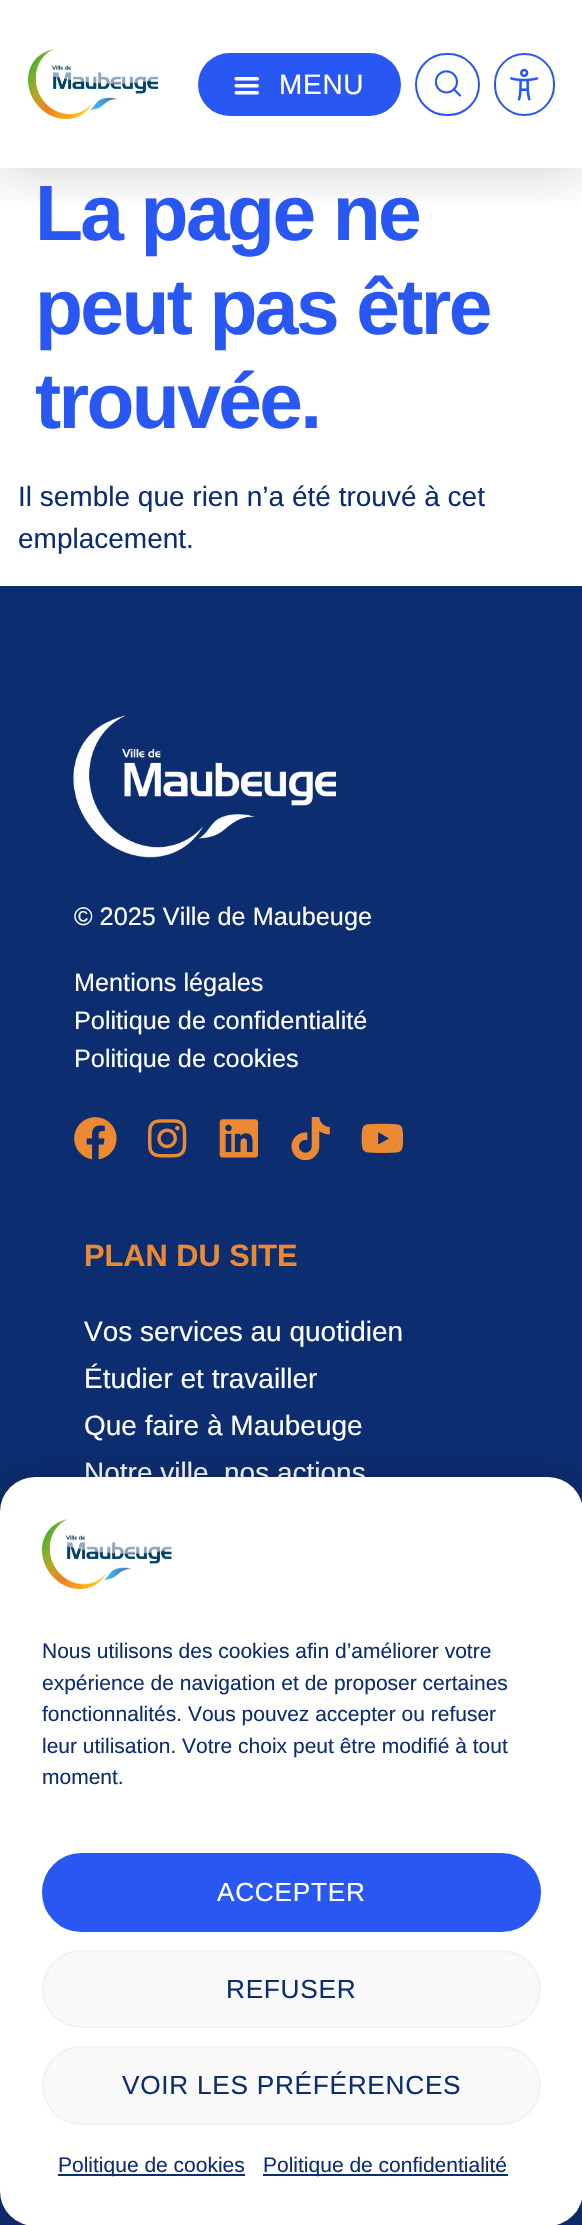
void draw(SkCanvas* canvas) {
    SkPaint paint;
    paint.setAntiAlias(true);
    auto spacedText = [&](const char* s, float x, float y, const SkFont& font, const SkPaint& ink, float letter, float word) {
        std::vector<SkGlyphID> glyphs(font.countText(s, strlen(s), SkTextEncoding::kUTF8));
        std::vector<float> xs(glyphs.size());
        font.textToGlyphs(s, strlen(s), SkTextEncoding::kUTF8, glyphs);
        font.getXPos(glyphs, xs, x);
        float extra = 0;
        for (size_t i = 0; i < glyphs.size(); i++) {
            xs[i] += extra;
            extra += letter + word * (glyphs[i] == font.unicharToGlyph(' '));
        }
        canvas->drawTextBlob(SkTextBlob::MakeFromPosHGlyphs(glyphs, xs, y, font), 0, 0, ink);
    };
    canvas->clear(0xFFFFFFFF);
    canvas->save();
    canvas->clipRect(SkRect::MakeXYWH(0, 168, 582, 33));
    paint.setColor(0x26000000);
    paint.setMaskFilter(SkMaskFilter::MakeBlur(kNormal_SkBlurStyle, 22));
    canvas->drawRect(SkRect::MakeXYWH(0, 9, 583, 168), paint);
    paint.setMaskFilter(nullptr);
    canvas->restore();
    canvas->drawImageRect(SkImages::DeferredFromEncodedData(SkData::MakeFromFileName("img1.png")), SkRect::MakeXYWH(28, 49, 130, 70), SkSamplingOptions());
    paint.setColor(0xFF2857F3);
    canvas->drawRoundRect(SkRect::MakeXYWH(198, 53, 203, 63), 31.5f, 31.5f, paint);
    canvas->drawImageRect(SkImages::DeferredFromEncodedData(SkData::MakeFromFileName("img2.png")), SkRect::MakeXYWH(234, 77, 25, 18), SkSamplingOptions());
    SkFont font1(fontMgr->matchFamilyStyle("Liberation Sans", SkFontStyle::Normal()), 28);
    font1.setSubpixel(true);
    paint.setColor(0xFFFFFFFF);
    spacedText("MENU", 279, 94, font1, paint, 0.7f, 0);
    paint.setStyle(SkPaint::kStroke_Style);
    paint.setStrokeWidth(2);
    paint.setColor(0xFF2857F3);
    canvas->drawRoundRect(SkRect::MakeXYWH(416, 54, 63, 61), 30.5f, 30.5f, paint);
    canvas->drawImageRect(SkImages::DeferredFromEncodedData(SkData::MakeFromFileName("img3.png")), SkRect::MakeXYWH(435, 70, 26, 27), SkSamplingOptions());
    canvas->drawRoundRect(SkRect::MakeXYWH(495, 54, 59, 61), 29.5f, 29.5f, paint);
    canvas->drawImageRect(SkImages::DeferredFromEncodedData(SkData::MakeFromFileName("img4.png")), SkRect::MakeXYWH(510, 68, 29, 33), SkSamplingOptions());
    SkFont font2(fontMgr->matchFamilyStyle("Liberation Sans", SkFontStyle::Bold()), 78.5f);
    font2.setSubpixel(true);
    paint.setStyle(SkPaint::kFill_Style);
    spacedText("La page ne", 35, 240, font2, paint, -2.6f, 0);
    spacedText("peut pas être", 35, 334, font2, paint, -2.6f, 0);
    spacedText("trouvée.", 35, 428, font2, paint, -2.6f, 0);
    paint.setColor(0xFF0C2E71);
    canvas->drawString("Il semble que rien n’a été trouvé à cet", 18, 506, font1, paint);
    canvas->drawString("emplacement.", 18, 548, font1, paint);
    canvas->drawRect(SkRect::MakeXYWH(0, 586, 582, 1639), paint);
    canvas->drawImageRect(SkImages::DeferredFromEncodedData(SkData::MakeFromFileName("img5.png")), SkRect::MakeXYWH(73, 715, 263, 143), SkSamplingOptions());
    SkFont font3(fontMgr->matchFamilyStyle("Liberation Sans", SkFontStyle::Normal()), 25.25f);
    font3.setSubpixel(true);
    paint.setColor(0xFFFFFFFF);
    canvas->drawString("© 2025 Ville de Maubeuge", 74, 925, font3, paint);
    canvas->drawString("Mentions légales", 74, 991, font3, paint);
    canvas->drawString("Politique de confidentialité", 74, 1029, font3, paint);
    canvas->drawString("Politique de cookies", 74, 1067, font3, paint);
    canvas->drawImageRect(SkImages::DeferredFromEncodedData(SkData::MakeFromFileName("img6.png")), SkRect::MakeXYWH(74, 1117, 43, 43), SkSamplingOptions());
    canvas->drawImageRect(SkImages::DeferredFromEncodedData(SkData::MakeFromFileName("img7.png")), SkRect::MakeXYWH(148, 1119, 39, 39), SkSamplingOptions());
    canvas->drawImageRect(SkImages::DeferredFromEncodedData(SkData::MakeFromFileName("img8.png")), SkRect::MakeXYWH(219, 1119, 39, 39), SkSamplingOptions());
    canvas->drawImageRect(SkImages::DeferredFromEncodedData(SkData::MakeFromFileName("img9.png")), SkRect::MakeXYWH(291, 1117, 39, 43), SkSamplingOptions());
    canvas->drawImageRect(SkImages::DeferredFromEncodedData(SkData::MakeFromFileName("img10.png")), SkRect::MakeXYWH(361, 1123, 43, 30), SkSamplingOptions());
    SkFont font4(fontMgr->matchFamilyStyle("Liberation Sans", SkFontStyle::Bold()), 30.75f);
    font4.setSubpixel(true);
    paint.setColor(0xFFEC8A34);
    canvas->drawString("PLAN DU SITE", 84, 1266, font4, paint);
    paint.setColor(0xFFFFFFFF);
    canvas->drawString("Vos services au quotidien", 84, 1341, font1, paint);
    canvas->drawString("Étudier et travailler", 84, 1388, font1, paint);
    canvas->drawString("Que faire à Maubeuge", 84, 1435, font1, paint);
    canvas->drawString("Notre ville, nos actions", 84, 1482, font1, paint);
    paint.setColor(0x2B000000);
    paint.setMaskFilter(SkMaskFilter::MakeBlur(kNormal_SkBlurStyle, 17.5f));
    canvas->drawRoundRect(SkRect::MakeXYWH(-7, 1470, 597, 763), 42, 42, paint);
    paint.setMaskFilter(nullptr);
    paint.setColor(0xFFFFFFFF);
    canvas->drawRoundRect(SkRect::MakeXYWH(0, 1477, 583, 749), 35, 35, paint);
    canvas->drawImageRect(SkImages::DeferredFromEncodedData(SkData::MakeFromFileName("img11.png")), SkRect::MakeXYWH(42, 1519, 130, 70), SkSamplingOptions());
    SkFont font5(fontMgr->matchFamilyStyle("Liberation Sans", SkFontStyle::Normal()), 21);
    font5.setSubpixel(true);
    paint.setColor(0xFF0C2E71);
    canvas->drawString("Nous utilisons des cookies afin d’améliorer votre", 42, 1658, font5, paint);
    canvas->drawString("expérience de navigation et de proposer certaines", 42, 1690, font5, paint);
    canvas->drawString("fonctionnalités. Vous pouvez accepter ou refuser", 42, 1721, font5, paint);
    canvas->drawString("leur utilisation. Votre choix peut être modifié à tout", 42, 1753, font5, paint);
    canvas->drawString("moment.", 42, 1784, font5, paint);
    paint.setColor(0xFF2857F3);
    canvas->drawRoundRect(SkRect::MakeXYWH(43, 1854, 497, 77), 38.5f, 38.5f, paint);
    paint.setStyle(SkPaint::kStroke_Style);
    canvas->drawRoundRect(SkRect::MakeXYWH(43, 1854, 497, 77), 38.5f, 38.5f, paint);
    SkFont font6(fontMgr->matchFamilyStyle("Liberation Sans", SkFontStyle::Normal()), 26.25f);
    font6.setSubpixel(true);
    paint.setStyle(SkPaint::kFill_Style);
    paint.setColor(0xFFFFFFFF);
    spacedText("ACCEPTER", 217, 1901, font6, paint, 0.7f, 0);
    paint.setColor(0xFFF9F9F9);
    canvas->drawRoundRect(SkRect::MakeXYWH(43, 1951, 497, 76), 38, 38, paint);
    paint.setStyle(SkPaint::kStroke_Style);
    paint.setColor(0xFFF2F2F2);
    canvas->drawRoundRect(SkRect::MakeXYWH(43, 1951, 497, 76), 38, 38, paint);
    paint.setStyle(SkPaint::kFill_Style);
    paint.setColor(0xFF0C2E71);
    spacedText("REFUSER", 226, 1998, font6, paint, 0.7f, 0);
    paint.setColor(0xFFF9F9F9);
    canvas->drawRoundRect(SkRect::MakeXYWH(43, 2047, 497, 77), 38.5f, 38.5f, paint);
    paint.setStyle(SkPaint::kStroke_Style);
    paint.setColor(0xFFF2F2F2);
    canvas->drawRoundRect(SkRect::MakeXYWH(43, 2047, 497, 77), 38.5f, 38.5f, paint);
    paint.setStyle(SkPaint::kFill_Style);
    paint.setColor(0xFF0C2E71);
    spacedText("VOIR LES PRÉFÉRENCES", 122, 2094, font6, paint, 0.7f, 0);
    canvas->drawRect(SkRect::MakeXYWH(58, 2174, 187, 2), paint);
    canvas->drawString("Politique de cookies", 58, 2172, font5, paint);
    canvas->drawRect(SkRect::MakeXYWH(263, 2174, 245, 2), paint);
    canvas->drawString("Politique de confidentialité", 263, 2172, font5, paint);
}
